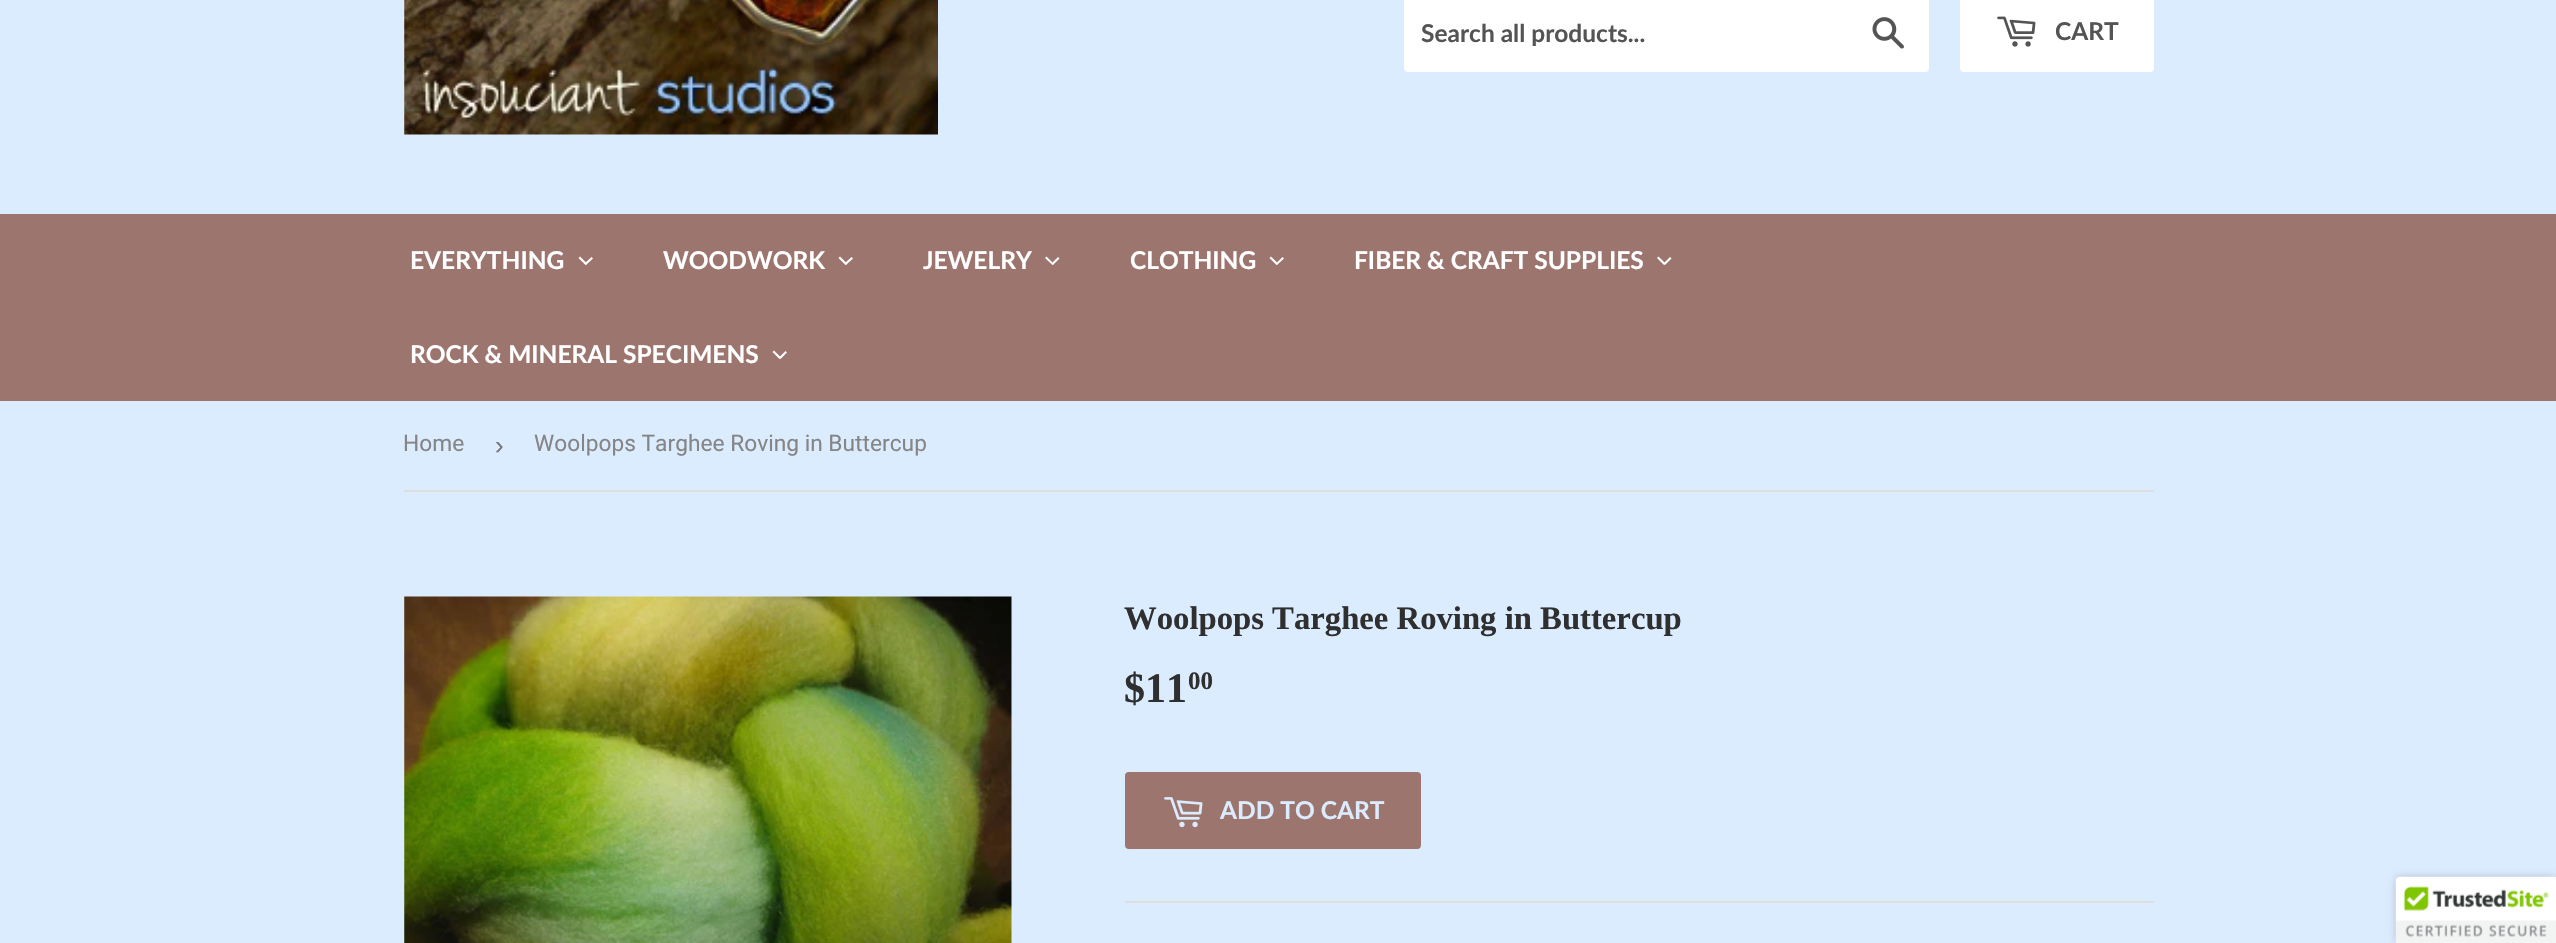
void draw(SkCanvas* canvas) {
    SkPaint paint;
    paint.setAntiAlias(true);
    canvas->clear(0xFFDCECFF);
    canvas->drawImageRect(SkImages::DeferredFromEncodedData(SkData::MakeFromFileName("img1.png")), SkRect::MakeXYWH(404, 0, 534, 135), SkSamplingOptions());
    paint.setColor(0xFFFFFFFF);
    canvas->drawRoundRect(SkRect::MakeXYWH(1404, -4, 525, 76), 4, 4, paint);
    SkFont font1(fontMgr->matchFamilyStyle("Lato", SkFontStyle::Bold()), 24.5f);
    font1.setSubpixel(true);
    paint.setColor(0xFF545454);
    canvas->drawString("Search all products...", 1421, 42, font1, paint);
    canvas->drawImageRect(SkImages::DeferredFromEncodedData(SkData::MakeFromFileName("img2.png")), SkRect::MakeXYWH(1872, 17, 32, 32), SkSamplingOptions());
    paint.setColor(0xFFFFFFFF);
    canvas->drawRoundRect(SkRect::MakeXYWH(1960, -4, 194, 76), 4, 4, paint);
    canvas->drawImageRect(SkImages::DeferredFromEncodedData(SkData::MakeFromFileName("img3.png")), SkRect::MakeXYWH(1997, 16, 39, 31), SkSamplingOptions());
    paint.setColor(0xFF545454);
    canvas->drawString("CART", 2055, 40, font1, paint);
    paint.setColor(0xFF9C756F);
    canvas->drawRect(SkRect::MakeXYWH(0, 214, 2556, 187), paint);
    paint.setColor(0xFFFFFFFF);
    canvas->drawString("EVERYTHING", 410, 269, font1, paint);
    canvas->drawPath(SkPathBuilder().moveTo(591.5f, 257).lineTo(593, 258.5f).lineTo(586, 265).lineTo(584.5f, 263.5f).close().detach(), paint);
    canvas->drawPath(SkPathBuilder().moveTo(580, 256.5f).lineTo(587, 263.5f).lineTo(585.5f, 265).lineTo(578.5f, 258).close().detach(), paint);
    canvas->drawString("WOODWORK", 663, 269, font1, paint);
    canvas->drawPath(SkPathBuilder().moveTo(851.5f, 257).lineTo(853, 258.5f).lineTo(846, 265).lineTo(844.5f, 263.5f).close().detach(), paint);
    canvas->drawPath(SkPathBuilder().moveTo(840, 256.5f).lineTo(847, 263.5f).lineTo(845.5f, 265).lineTo(838.5f, 258).close().detach(), paint);
    canvas->drawString("JEWELRY", 923, 269, font1, paint);
    canvas->drawPath(SkPathBuilder().moveTo(1058, 257).lineTo(1059.5f, 258.5f).lineTo(1053, 265).lineTo(1051.5f, 263.5f).close().detach(), paint);
    canvas->drawPath(SkPathBuilder().moveTo(1046.5f, 256.5f).lineTo(1053.5f, 263.5f).lineTo(1052.5f, 265).lineTo(1045, 258).close().detach(), paint);
    canvas->drawString("CLOTHING", 1130, 269, font1, paint);
    canvas->drawPath(SkPathBuilder().moveTo(1282.5f, 257).lineTo(1284, 258.5f).lineTo(1277, 265).lineTo(1276, 263.5f).close().detach(), paint);
    canvas->drawPath(SkPathBuilder().moveTo(1271, 256.5f).lineTo(1278, 263.5f).lineTo(1276.5f, 265).lineTo(1269.5f, 258).close().detach(), paint);
    canvas->drawString("FIBER & CRAFT SUPPLIES", 1354, 269, font1, paint);
    canvas->drawPath(SkPathBuilder().moveTo(1670, 257).lineTo(1671.5f, 258.5f).lineTo(1665, 265).lineTo(1663.5f, 263.5f).close().detach(), paint);
    canvas->drawPath(SkPathBuilder().moveTo(1658.5f, 256.5f).lineTo(1665.5f, 263.5f).lineTo(1664, 265).lineTo(1657, 258).close().detach(), paint);
    canvas->drawString("ROCK & MINERAL SPECIMENS", 410, 363, font1, paint);
    canvas->drawPath(SkPathBuilder().moveTo(785.5f, 351).lineTo(787, 352.5f).lineTo(780.5f, 359).lineTo(779, 357.5f).close().detach(), paint);
    canvas->drawPath(SkPathBuilder().moveTo(774, 350.5f).lineTo(781, 357.5f).lineTo(779.5f, 359).lineTo(772.5f, 352).close().detach(), paint);
    paint.setColor(0xFFDEDEDE);
    canvas->drawRect(SkRect::MakeXYWH(404, 490, 1750, 2), paint);
    SkFont font2(fontMgr->matchFamilyStyle("Roboto", SkFontStyle::Normal()), 22.75f);
    font2.setSubpixel(true);
    paint.setColor(0xFF858585);
    canvas->drawString("Home", 403, 451, font2, paint);
    SkFont font3(fontMgr->matchFamilyStyle("Liberation Sans", SkFontStyle::Normal()), 26);
    font3.setSubpixel(true);
    paint.setColor(0xFF767676);
    canvas->drawString("›", 495, 454, font3, paint);
    paint.setColor(0xFF858585);
    canvas->drawString("Woolpops Targhee Roving in Buttercup", 534, 451, font2, paint);
    canvas->drawImageRect(SkImages::DeferredFromEncodedData(SkData::MakeFromFileName("img4.png")), SkRect::MakeXYWH(404, 596, 608, 347), SkSamplingOptions());
    SkFont font4(fontMgr->matchFamilyStyle("Liberation Serif", SkFontStyle::Bold()), 32.7f);
    font4.setSubpixel(true);
    paint.setColor(0xFF2F2F2F);
    canvas->drawString("Woolpops Targhee Roving in Buttercup", 1124, 629, font4, paint);
    SkFont font5(fontMgr->matchFamilyStyle("Liberation Serif", SkFontStyle::Bold()), 42);
    font5.setSubpixel(true);
    canvas->drawString("$11", 1124, 702, font5, paint);
    SkFont font6(fontMgr->matchFamilyStyle("Liberation Serif", SkFontStyle::Bold()), 25);
    font6.setSubpixel(true);
    canvas->drawString("00", 1188, 689, font6, paint);
    paint.setColor(0xFF9C756F);
    canvas->drawRoundRect(SkRect::MakeXYWH(1125, 772, 296, 77), 4, 4, paint);
    canvas->drawImageRect(SkImages::DeferredFromEncodedData(SkData::MakeFromFileName("img5.png")), SkRect::MakeXYWH(1164, 797, 39, 31), SkSamplingOptions());
    paint.setColor(0xFFDCECFF);
    canvas->drawString("ADD TO CART", 1220, 819, font1, paint);
    paint.setColor(0xFFDEDEDE);
    canvas->drawRect(SkRect::MakeXYWH(1125, 901, 1029, 2), paint);
    paint.setColor(0x33000000);
    paint.setMaskFilter(SkMaskFilter::MakeBlur(kNormal_SkBlurStyle, 4.5f));
    canvas->drawRoundRect(SkRect::MakeXYWH(2396, 877, 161, 66), 4, 4, paint);
    paint.setMaskFilter(nullptr);
    paint.setColor(0xFFFFFFFF);
    canvas->drawPath(SkPathBuilder().moveTo(2400, 877).lineTo(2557, 877).lineTo(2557, 943).lineTo(2396, 943).lineTo(2396, 881).cubicTo(2396, 879, 2398, 877, 2400, 877).close().detach(), paint);
    canvas->drawImageRect(SkImages::DeferredFromEncodedData(SkData::MakeFromFileName("img6.png")), SkRect::MakeXYWH(2395, 876, 161, 67), SkSamplingOptions());
}
